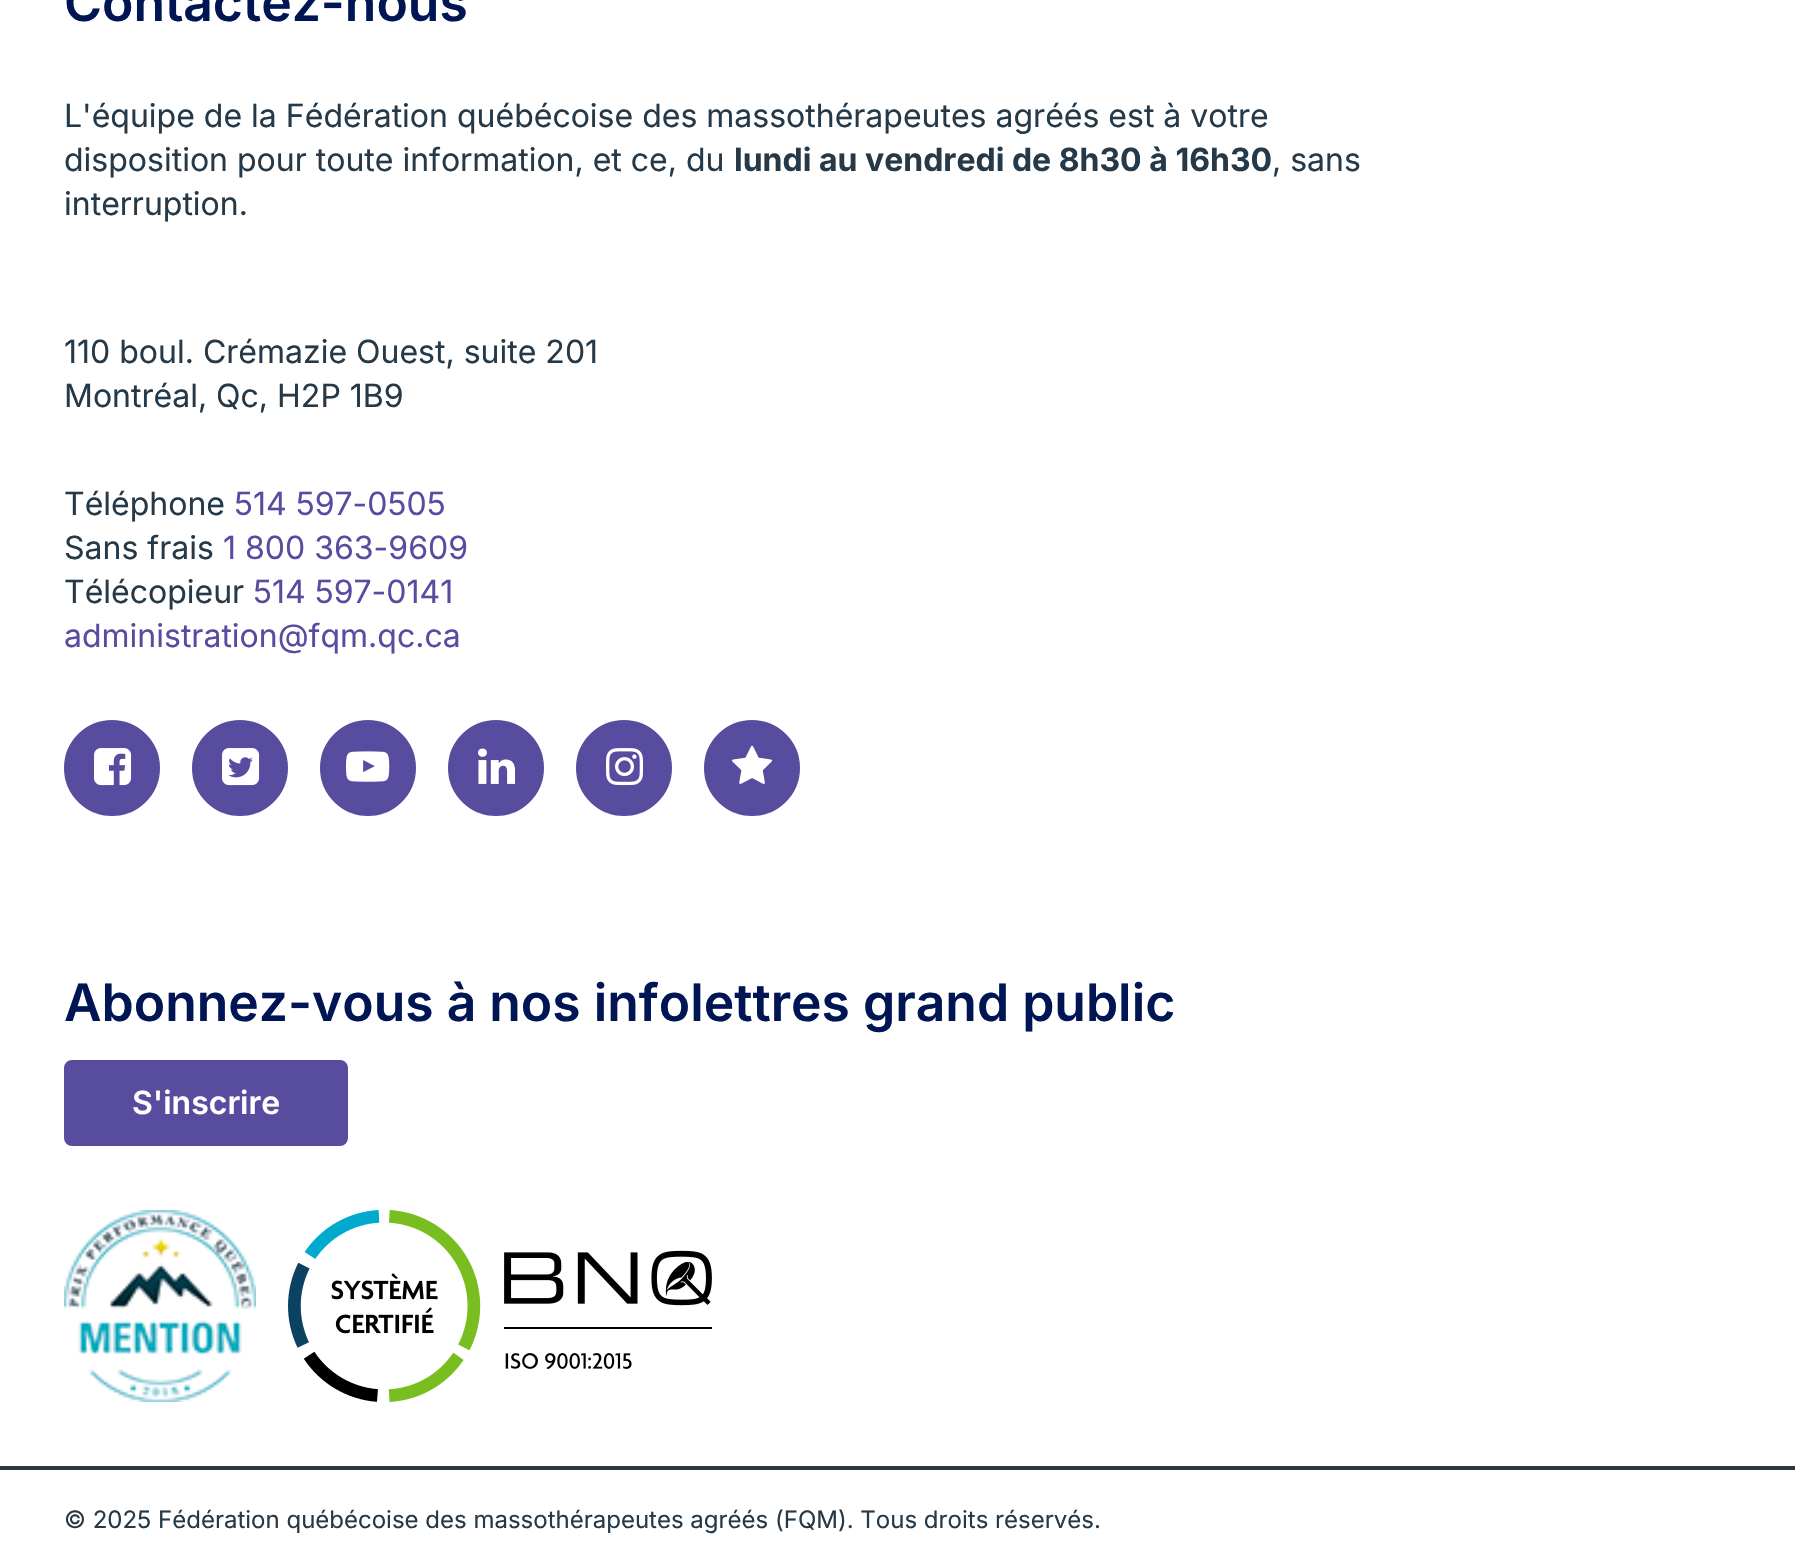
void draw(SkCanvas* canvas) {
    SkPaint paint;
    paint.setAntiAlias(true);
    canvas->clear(0xFFFFFFFF);
    SkFont font1(fontMgr->matchFamilyStyle("Inter", SkFontStyle(600, SkFontStyle::kNormal_Width, SkFontStyle::kUpright_Slant)), 51.6f);
    font1.setSubpixel(true);
    paint.setColor(0xFF001554);
    canvas->drawString("Contactez-nous", 64, 21, font1, paint);
    SkFont font2(fontMgr->matchFamilyStyle("Inter", SkFontStyle::Normal()), 32);
    font2.setSubpixel(true);
    paint.setColor(0xFF253948);
    canvas->drawString("L'équipe de la Fédération québécoise des massothérapeutes agréés est à votre", 64, 127, font2, paint);
    canvas->drawString("disposition pour toute information, et ce, du", 64, 171, font2, paint);
    SkFont font3(fontMgr->matchFamilyStyle("Inter", SkFontStyle::Bold()), 32);
    font3.setSubpixel(true);
    canvas->drawString("lundi au vendredi de 8h30 à 16h30", 734, 171, font3, paint);
    canvas->drawString(", sans", 1272, 171, font2, paint);
    canvas->drawString("interruption.", 64, 215, font2, paint);
    canvas->drawString("110 boul. Crémazie Ouest, suite 201", 64, 363, font2, paint);
    canvas->drawString("Montréal, Qc, H2P 1B9", 64, 407, font2, paint);
    canvas->drawString("Téléphone", 64, 515, font2, paint);
    paint.setColor(0xFF584CA0);
    canvas->drawString("514 597-0505", 234, 515, font2, paint);
    paint.setColor(0xFF253948);
    canvas->drawString("Sans frais", 64, 559, font2, paint);
    paint.setColor(0xFF584CA0);
    canvas->drawString("1 800 363-9609", 223, 559, font2, paint);
    paint.setColor(0xFF253948);
    canvas->drawString("Télécopieur", 64, 603, font2, paint);
    paint.setColor(0xFF584CA0);
    canvas->drawString("514 597-0141", 253, 603, font2, paint);
    canvas->drawString("administration@fqm.qc.ca", 64, 647, font2, paint);
    canvas->drawCircle(112, 768, 46, paint);
    paint.setStyle(SkPaint::kStroke_Style);
    paint.setStrokeWidth(4);
    canvas->drawCircle(112, 768, 46, paint);
    canvas->drawImageRect(SkImages::DeferredFromEncodedData(SkData::MakeFromFileName("img1.png")), SkRect::MakeXYWH(94, 748, 38, 38), SkSamplingOptions());
    paint.setStyle(SkPaint::kFill_Style);
    canvas->drawCircle(240, 768, 46, paint);
    paint.setStyle(SkPaint::kStroke_Style);
    canvas->drawCircle(240, 768, 46, paint);
    canvas->drawImageRect(SkImages::DeferredFromEncodedData(SkData::MakeFromFileName("img2.png")), SkRect::MakeXYWH(222, 748, 38, 38), SkSamplingOptions());
    paint.setStyle(SkPaint::kFill_Style);
    canvas->drawCircle(368, 768, 46, paint);
    paint.setStyle(SkPaint::kStroke_Style);
    canvas->drawCircle(368, 768, 46, paint);
    canvas->drawImageRect(SkImages::DeferredFromEncodedData(SkData::MakeFromFileName("img3.png")), SkRect::MakeXYWH(346, 751, 44, 31), SkSamplingOptions());
    paint.setStyle(SkPaint::kFill_Style);
    canvas->drawCircle(496, 768, 46, paint);
    paint.setStyle(SkPaint::kStroke_Style);
    canvas->drawCircle(496, 768, 46, paint);
    canvas->drawImageRect(SkImages::DeferredFromEncodedData(SkData::MakeFromFileName("img4.png")), SkRect::MakeXYWH(478, 748, 38, 36), SkSamplingOptions());
    paint.setStyle(SkPaint::kFill_Style);
    canvas->drawCircle(624, 768, 46, paint);
    paint.setStyle(SkPaint::kStroke_Style);
    canvas->drawCircle(624, 768, 46, paint);
    canvas->drawImageRect(SkImages::DeferredFromEncodedData(SkData::MakeFromFileName("img5.png")), SkRect::MakeXYWH(606, 748, 38, 38), SkSamplingOptions());
    paint.setStyle(SkPaint::kFill_Style);
    canvas->drawCircle(752, 768, 46, paint);
    paint.setStyle(SkPaint::kStroke_Style);
    canvas->drawCircle(752, 768, 46, paint);
    canvas->drawImageRect(SkImages::DeferredFromEncodedData(SkData::MakeFromFileName("img6.png")), SkRect::MakeXYWH(732, 745, 41, 39), SkSamplingOptions());
    paint.setStyle(SkPaint::kFill_Style);
    paint.setColor(0xFF001554);
    canvas->drawString("Abonnez-vous à nos infolettres grand public", 64, 1021, font1, paint);
    paint.setColor(0xFF584C9F);
    canvas->drawRoundRect(SkRect::MakeXYWH(66, 1062, 280, 82), 6, 6, paint);
    paint.setStyle(SkPaint::kStroke_Style);
    canvas->drawRoundRect(SkRect::MakeXYWH(66, 1062, 280, 82), 6, 6, paint);
    SkFont font4(fontMgr->matchFamilyStyle("Inter", SkFontStyle(600, SkFontStyle::kNormal_Width, SkFontStyle::kUpright_Slant)), 32);
    font4.setSubpixel(true);
    paint.setStyle(SkPaint::kFill_Style);
    paint.setColor(0xFFFFFFFF);
    canvas->drawString("S'inscrire", 132, 1114, font4, paint);
    canvas->drawImageRect(SkImages::DeferredFromEncodedData(SkData::MakeFromFileName("img7.png")), SkRect::MakeXYWH(64, 1210, 192, 192), SkSamplingOptions());
    canvas->drawImageRect(SkImages::DeferredFromEncodedData(SkData::MakeFromFileName("img8.png")), SkRect::MakeXYWH(288, 1210, 424, 192), SkSamplingOptions());
    paint.setColor(0xFF253948);
    canvas->drawRect(SkRect::MakeXYWH(0, 1466, 1795, 4), paint);
    SkFont font5(fontMgr->matchFamilyStyle("Inter", SkFontStyle::Normal()), 24);
    font5.setSubpixel(true);
    canvas->drawString("© 2025 Fédération québécoise des massothérapeutes agréés (FQM). Tous droits réservés.", 64, 1528, font5, paint);
}
